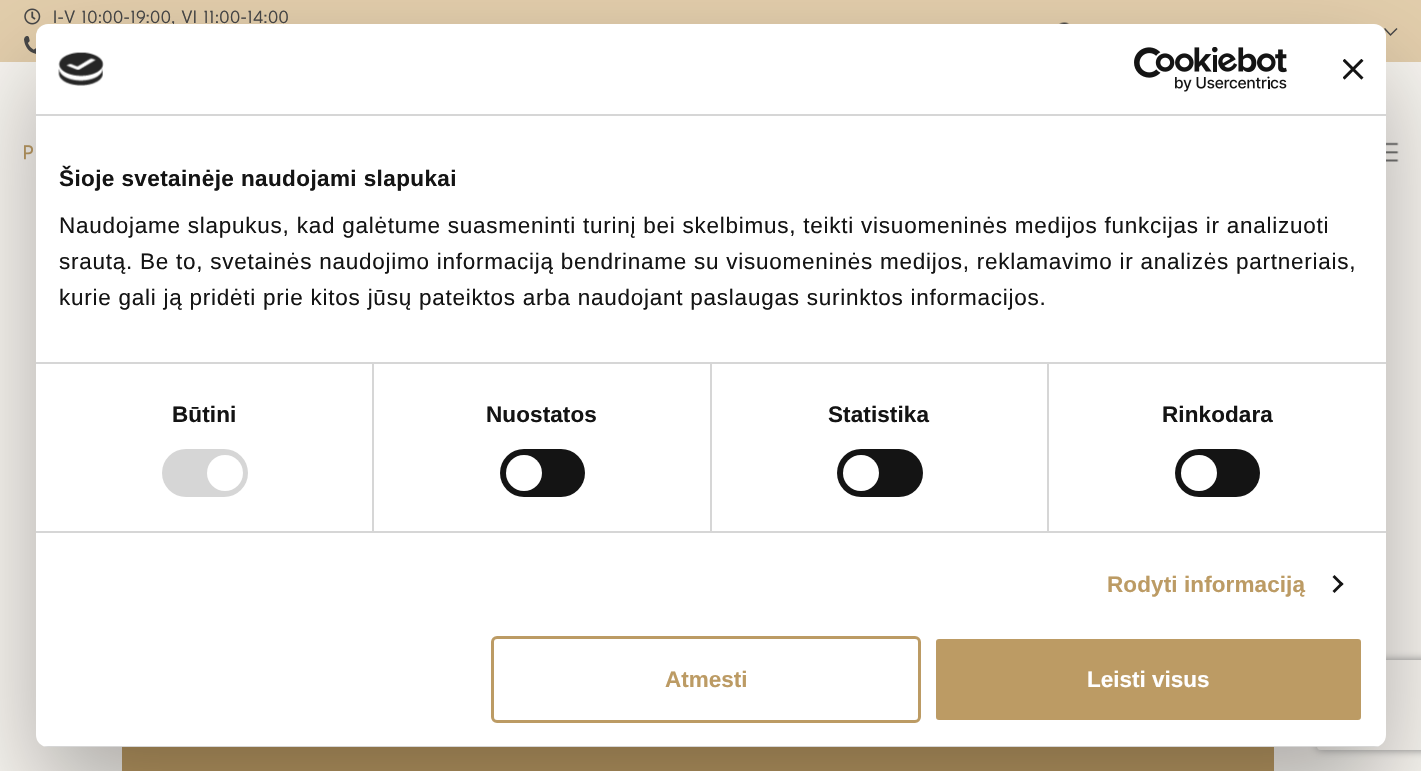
void draw(SkCanvas* canvas) {
    SkPaint paint;
    paint.setAntiAlias(true);
    auto spacedText = [&](const char* s, float x, float y, const SkFont& font, const SkPaint& ink, float letter, float word) {
        std::vector<SkGlyphID> glyphs(font.countText(s, strlen(s), SkTextEncoding::kUTF8));
        std::vector<float> xs(glyphs.size());
        font.textToGlyphs(s, strlen(s), SkTextEncoding::kUTF8, glyphs);
        font.getXPos(glyphs, xs, x);
        float extra = 0;
        for (size_t i = 0; i < glyphs.size(); i++) {
            xs[i] += extra;
            extra += letter + word * (glyphs[i] == font.unicharToGlyph(' '));
        }
        canvas->drawTextBlob(SkTextBlob::MakeFromPosHGlyphs(glyphs, xs, y, font), 0, 0, ink);
    };
    canvas->clear(0xFFF8F5F0);
    paint.setColor(0xFFE3CEAC);
    canvas->drawRect(SkRect::MakeXYWH(0, 0, 1421, 62), paint);
    canvas->drawImageRect(SkImages::DeferredFromEncodedData(SkData::MakeFromFileName("img1.png")), SkRect::MakeXYWH(24, 8, 17, 17), SkSamplingOptions());
    SkFont font1(fontMgr->matchFamilyStyle("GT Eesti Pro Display", SkFontStyle(300, SkFontStyle::kNormal_Width, SkFontStyle::kUpright_Slant)), 18);
    font1.setSubpixel(true);
    paint.setColor(0xFF474747);
    spacedText("I-V 10:00-19:00, VI 11:00-14:00", 53, 23, font1, paint, 0.45f, 0);
    canvas->drawImageRect(SkImages::DeferredFromEncodedData(SkData::MakeFromFileName("img2.png")), SkRect::MakeXYWH(24, 36, 12, 18), SkSamplingOptions());
    canvas->drawImageRect(SkImages::DeferredFromEncodedData(SkData::MakeFromFileName("img3.png")), SkRect::MakeXYWH(1059, 22, 11, 2), SkSamplingOptions());
    paint.setStyle(SkPaint::kStroke_Style);
    paint.setStrokeWidth(1.5f);
    canvas->drawPath(SkPathBuilder().moveTo(1397, 28.5f).lineTo(1390.5f, 35).lineTo(1384.5f, 28.5f).detach(), paint);
    canvas->drawImageRect(SkImages::DeferredFromEncodedData(SkData::MakeFromFileName("img4.png")), SkRect::MakeXYWH(24, 145, 9, 15), SkSamplingOptions());
    canvas->drawImageRect(SkImages::DeferredFromEncodedData(SkData::MakeFromFileName("img5.png")), SkRect::MakeXYWH(1386, 142, 13, 20), SkSamplingOptions());
    paint.setStyle(SkPaint::kFill_Style);
    paint.setColor(0xFFBC9B64);
    canvas->drawRect(SkRect::MakeXYWH(122, 747, 1152, 24), paint);
    paint.setColor(0x4D000000);
    paint.setMaskFilter(SkMaskFilter::MakeBlur(kNormal_SkBlurStyle, 51));
    canvas->drawRoundRect(SkRect::MakeXYWH(36, 72, 1350, 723), 12, 12, paint);
    paint.setMaskFilter(nullptr);
    canvas->save();
    canvas->clipPath(SkPathBuilder(SkPathFillType::kEvenOdd).moveTo(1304, 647).lineTo(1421, 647).lineTo(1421, 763).lineTo(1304, 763).close().moveTo(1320, 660).lineTo(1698, 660).cubicTo(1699.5f, 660, 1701, 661.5f, 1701, 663).lineTo(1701, 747).cubicTo(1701, 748.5f, 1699.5f, 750, 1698, 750).lineTo(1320, 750).cubicTo(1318.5f, 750, 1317, 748.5f, 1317, 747).lineTo(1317, 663).cubicTo(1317, 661.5f, 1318.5f, 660, 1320, 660).close().detach(), true);
    paint.setColor(0xFF808080);
    paint.setMaskFilter(SkMaskFilter::MakeBlur(kNormal_SkBlurStyle, 4));
    canvas->drawRoundRect(SkRect::MakeXYWH(1317, 660, 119, 90), 3, 3, paint);
    paint.setMaskFilter(nullptr);
    canvas->restore();
    paint.setColor(0xFFFFFFFF);
    canvas->drawRoundRect(SkRect::MakeXYWH(36, 24, 1350, 723), 12, 12, paint);
    paint.setColor(0xFFD6D6D6);
    canvas->drawRect(SkRect::MakeXYWH(36, 114, 1350, 2), paint);
    canvas->drawImageRect(SkImages::DeferredFromEncodedData(SkData::MakeFromFileName("img6.png")), SkRect::MakeXYWH(58, 52, 46, 34), SkSamplingOptions());
    canvas->drawImageRect(SkImages::DeferredFromEncodedData(SkData::MakeFromFileName("img7.png")), SkRect::MakeXYWH(1134, 47, 153, 45), SkSamplingOptions());
    canvas->drawImageRect(SkImages::DeferredFromEncodedData(SkData::MakeFromFileName("img8.png")), SkRect::MakeXYWH(1343, 59, 21, 21), SkSamplingOptions());
    canvas->drawRect(SkRect::MakeXYWH(372, 363, 2, 168), paint);
    canvas->drawRect(SkRect::MakeXYWH(710, 363, 2, 168), paint);
    canvas->drawRect(SkRect::MakeXYWH(1047, 363, 2, 168), paint);
    canvas->drawRect(SkRect::MakeXYWH(36, 362, 1350, 2), paint);
    SkFont font2(fontMgr->matchFamilyStyle("Liberation Sans", SkFontStyle::Bold()), 22.5f);
    font2.setSubpixel(true);
    paint.setColor(0xFF141414);
    spacedText("Šioje svetainėje naudojami slapukai", 59, 186, font2, paint, 0.4f, 0);
    SkFont font3(fontMgr->matchFamilyStyle("Liberation Sans", SkFontStyle::Normal()), 22.5f);
    font3.setSubpixel(true);
    spacedText("Naudojame slapukus, kad galėtume suasmeninti turinį bei skelbimus, teikti visuomeninės medijos funkcijas ir analizuoti", 59, 233, font3, paint, 0.75f, 0);
    spacedText("srautą. Be to, svetainės naudojimo informaciją bendriname su visuomeninės medijos, reklamavimo ir analizės partneriais,", 59, 269, font3, paint, 0.75f, 0);
    spacedText("kurie gali ją pridėti prie kitos jūsų pateiktos arba naudojant paslaugas surinktos informacijos.", 59, 305, font3, paint, 0.75f, 0);
    paint.setColor(0xFFD6D6D6);
    canvas->drawRect(SkRect::MakeXYWH(36, 531, 1350, 2), paint);
    paint.setColor(0xFF141414);
    spacedText("Būtini", 172, 422, font2, paint, 0.1f, 0);
    paint.setColor(0xFFD6D6D6);
    canvas->drawRoundRect(SkRect::MakeXYWH(162, 449, 86, 48), 24, 24, paint);
    paint.setColor(0xFFFFFFFF);
    canvas->drawCircle(225, 473, 18, paint);
    paint.setColor(0xFF141414);
    spacedText("Nuostatos", 486, 422, font2, paint, 0.1f, 0);
    canvas->drawRoundRect(SkRect::MakeXYWH(500, 449, 85, 48), 24, 24, paint);
    paint.setColor(0xFFFFFFFF);
    canvas->drawCircle(524, 473, 18, paint);
    paint.setColor(0xFF141414);
    spacedText("Statistika", 828, 422, font2, paint, 0.1f, 0);
    canvas->drawRoundRect(SkRect::MakeXYWH(837, 449, 86, 48), 24, 24, paint);
    paint.setColor(0xFFFFFFFF);
    canvas->drawCircle(861, 473, 18, paint);
    paint.setColor(0xFF141414);
    spacedText("Rinkodara", 1162, 422, font2, paint, 0.1f, 0);
    canvas->drawRoundRect(SkRect::MakeXYWH(1175, 449, 85, 48), 24, 24, paint);
    paint.setColor(0xFFFFFFFF);
    canvas->drawCircle(1199, 473, 18, paint);
    paint.setColor(0xFFBC9B64);
    spacedText("Rodyti informaciją", 1107, 592, font2, paint, 0.1f, 0);
    paint.setColor(0xFF141414);
    canvas->drawPath(SkPathBuilder().moveTo(1334.5f, 575).lineTo(1343.5f, 584).lineTo(1341.5f, 586).lineTo(1332.5f, 577).close().detach(), paint);
    canvas->drawPath(SkPathBuilder().moveTo(1341.5f, 582).lineTo(1343.5f, 584).lineTo(1334.5f, 593).lineTo(1332.5f, 591).close().detach(), paint);
    canvas->save();
    canvas->clipPath(SkPathBuilder().moveTo(48, 24).lineTo(1374, 24).cubicTo(1380.5f, 24, 1386, 29.5f, 1386, 36).lineTo(1386, 735).cubicTo(1386, 741.5f, 1380.5f, 747, 1374, 747).lineTo(48, 747).cubicTo(41.5f, 747, 36, 741.5f, 36, 735).lineTo(36, 36).cubicTo(36, 29.5f, 41.5f, 24, 48, 24).close().detach(), true);
    paint.setColor(0xFFD6D6D6);
    canvas->drawRect(SkRect::MakeXYWH(36, 746, 1350, 1), paint);
    canvas->restore();
    paint.setStyle(SkPaint::kStroke_Style);
    paint.setStrokeWidth(3);
    paint.setColor(0xFFBC9B64);
    canvas->drawRoundRect(SkRect::MakeXYWH(492.5f, 637.5f, 427, 84), 4.5f, 4.5f, paint);
    paint.setStyle(SkPaint::kFill_Style);
    canvas->drawString("Atmesti", 665, 687, font2, paint);
    canvas->drawRoundRect(SkRect::MakeXYWH(934.5f, 637.5f, 428, 84), 4.5f, 4.5f, paint);
    paint.setStyle(SkPaint::kStroke_Style);
    paint.setColor(0xFFFFFFFF);
    canvas->drawRoundRect(SkRect::MakeXYWH(934.5f, 637.5f, 428, 84), 4.5f, 4.5f, paint);
    paint.setStyle(SkPaint::kFill_Style);
    canvas->drawString("Leisti visus", 1087, 687, font2, paint);
}
